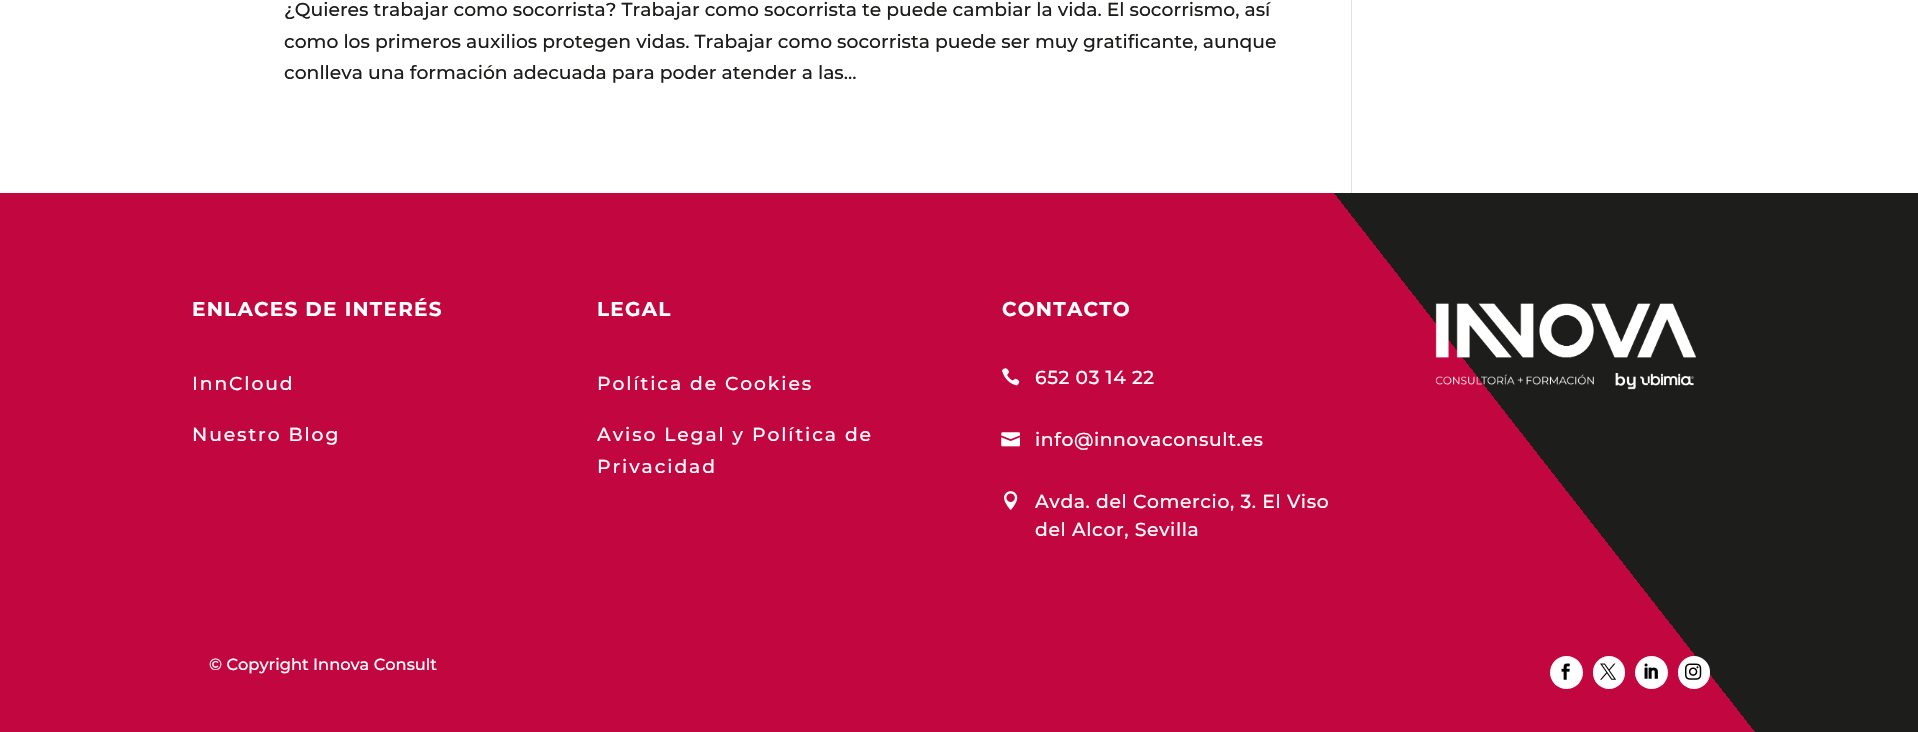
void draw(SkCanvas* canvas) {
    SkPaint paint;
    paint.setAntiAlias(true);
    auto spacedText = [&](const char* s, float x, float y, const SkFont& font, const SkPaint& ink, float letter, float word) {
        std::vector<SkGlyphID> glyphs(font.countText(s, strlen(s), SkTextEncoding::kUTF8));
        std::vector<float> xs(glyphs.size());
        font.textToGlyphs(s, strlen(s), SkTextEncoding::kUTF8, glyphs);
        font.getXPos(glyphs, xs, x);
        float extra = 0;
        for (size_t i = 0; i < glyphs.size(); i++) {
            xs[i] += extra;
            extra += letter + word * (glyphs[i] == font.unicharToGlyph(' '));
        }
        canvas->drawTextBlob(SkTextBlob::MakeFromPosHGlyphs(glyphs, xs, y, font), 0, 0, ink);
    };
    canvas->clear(0xFFFFFFFF);
    SkFont font1(fontMgr->matchFamilyStyle("Montserrat", SkFontStyle(500, SkFontStyle::kNormal_Width, SkFontStyle::kUpright_Slant)), 18.75f);
    font1.setSubpixel(true);
    paint.setColor(0xFF1D1D1B);
    canvas->drawString("¿Quieres trabajar como socorrista? Trabajar como socorrista te puede cambiar la vida. El socorrismo, así", 284, 16, font1, paint);
    canvas->drawString("como los primeros auxilios protegen vidas. Trabajar como socorrista puede ser muy gratificante, aunque", 284, 48, font1, paint);
    canvas->drawString("conlleva una formación adecuada para poder atender a las...", 284, 79, font1, paint);
    paint.setColor(0xFFE2E2E2);
    canvas->drawRect(SkRect::MakeXYWH(1351, 0, 1, 193), paint);
    {
        const SkColor colors[] = {0xFF1D1D1B, 0xFFC20640};
        const float stops[] = {0.25f, 0.25f};
        const SkPoint ends[] = {{1686, -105}, {233, 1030}};
        paint.setShader(SkGradientShader::MakeLinear(ends, colors, stops, 2, SkTileMode::kClamp));
        paint.setAlpha(255);
    }
    canvas->drawRect(SkRect::MakeXYWH(0, 193, 1918, 539), paint);
    SkFont font2(fontMgr->matchFamilyStyle("Montserrat", SkFontStyle::Bold()), 20);
    font2.setSubpixel(true);
    paint.setShader(nullptr);
    paint.setColor(0xFFFFFFFF);
    spacedText("ENLACES DE INTERÉS", 192, 316, font2, paint, 1.25f, 0);
    spacedText("InnCloud", 192, 390, font1, paint, 1.9f, 0);
    spacedText("Nuestro Blog", 192, 441, font1, paint, 1.9f, 0);
    spacedText("LEGAL", 597, 316, font2, paint, 1.25f, 0);
    spacedText("Política de Cookies", 597, 390, font1, paint, 1.9f, 0);
    spacedText("Aviso Legal y Política de", 597, 441, font1, paint, 1.9f, 0);
    spacedText("Privacidad", 597, 473, font1, paint, 1.9f, 0);
    spacedText("CONTACTO", 1002, 316, font2, paint, 1.25f, 0);
    canvas->drawImageRect(SkImages::DeferredFromEncodedData(SkData::MakeFromFileName("img1.png")), SkRect::MakeXYWH(1002, 368, 18, 18), SkSamplingOptions());
    spacedText("652 03 14 22", 1035, 384, font1, paint, 0.6f, 0);
    canvas->drawImageRect(SkImages::DeferredFromEncodedData(SkData::MakeFromFileName("img2.png")), SkRect::MakeXYWH(1001, 432, 19, 15), SkSamplingOptions());
    spacedText("info@innovaconsult.es", 1035, 446, font1, paint, 0.6f, 0);
    canvas->drawImageRect(SkImages::DeferredFromEncodedData(SkData::MakeFromFileName("img3.png")), SkRect::MakeXYWH(1004, 491, 14, 19), SkSamplingOptions());
    spacedText("Avda. del Comercio, 3. El Viso", 1035, 508, font1, paint, 0.6f, 0);
    spacedText("del Alcor, Sevilla", 1035, 536, font1, paint, 0.6f, 0);
    canvas->drawImageRect(SkImages::DeferredFromEncodedData(SkData::MakeFromFileName("img4.png")), SkRect::MakeXYWH(1435, 303, 261, 87), SkSamplingOptions());
    SkFont font3(fontMgr->matchFamilyStyle("Montserrat", SkFontStyle(500, SkFontStyle::kNormal_Width, SkFontStyle::kUpright_Slant)), 16.25f);
    font3.setSubpixel(true);
    canvas->drawString("© Copyright Innova Consult", 209, 670, font3, paint);
    canvas->drawCircle(1566.5f, 672.5f, 16.5f, paint);
    canvas->drawImageRect(SkImages::DeferredFromEncodedData(SkData::MakeFromFileName("img5.png")), SkRect::MakeXYWH(1561, 663, 9, 17), SkSamplingOptions());
    canvas->drawRoundRect(SkRect::MakeXYWH(1593, 656, 32, 33), 16, 16, paint);
    canvas->drawImageRect(SkImages::DeferredFromEncodedData(SkData::MakeFromFileName("img6.png")), SkRect::MakeXYWH(1600, 663, 17, 17), SkSamplingOptions());
    canvas->drawCircle(1651.5f, 672.5f, 16.5f, paint);
    canvas->drawImageRect(SkImages::DeferredFromEncodedData(SkData::MakeFromFileName("img7.png")), SkRect::MakeXYWH(1644, 663, 14, 16), SkSamplingOptions());
    canvas->drawRoundRect(SkRect::MakeXYWH(1678, 656, 32, 33), 16, 16, paint);
    canvas->drawImageRect(SkImages::DeferredFromEncodedData(SkData::MakeFromFileName("img8.png")), SkRect::MakeXYWH(1685, 663, 17, 17), SkSamplingOptions());
}
